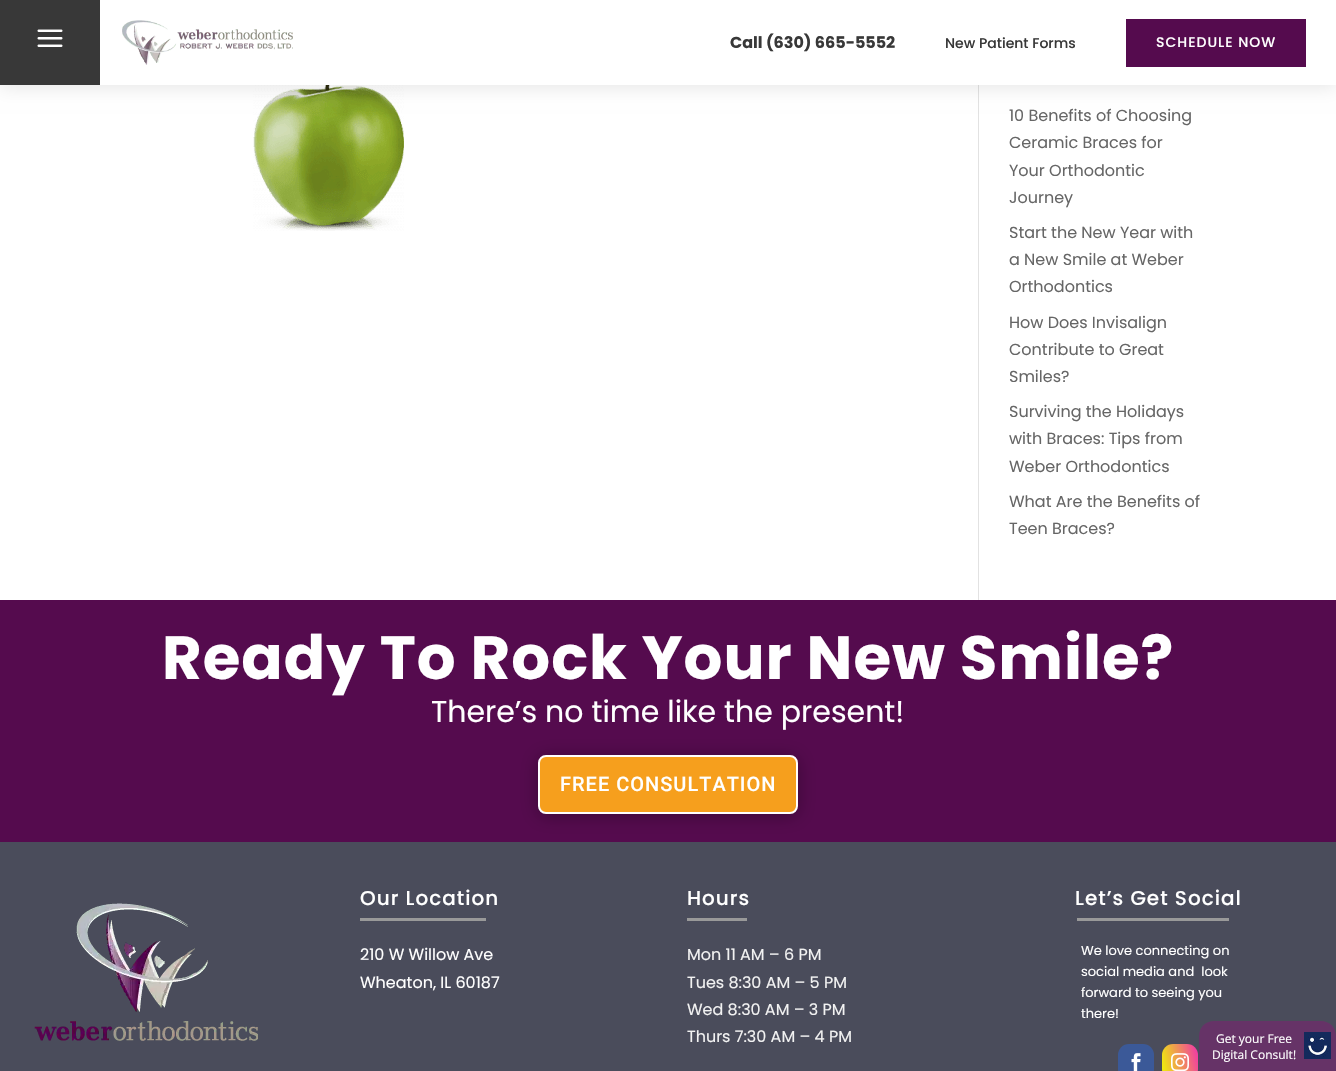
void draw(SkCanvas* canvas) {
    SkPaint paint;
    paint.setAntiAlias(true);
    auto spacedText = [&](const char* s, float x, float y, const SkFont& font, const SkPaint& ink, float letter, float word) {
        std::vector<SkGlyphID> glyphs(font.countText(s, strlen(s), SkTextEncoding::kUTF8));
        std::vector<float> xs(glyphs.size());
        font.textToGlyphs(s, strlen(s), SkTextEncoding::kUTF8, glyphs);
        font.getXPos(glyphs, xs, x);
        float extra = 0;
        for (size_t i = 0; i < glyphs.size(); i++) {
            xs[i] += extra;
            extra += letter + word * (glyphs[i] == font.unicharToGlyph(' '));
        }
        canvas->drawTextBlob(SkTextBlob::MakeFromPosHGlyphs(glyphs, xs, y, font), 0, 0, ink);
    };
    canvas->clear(0xFFFFFFFF);
    paint.setColor(0xFFE2E2E2);
    canvas->drawRect(SkRect::MakeXYWH(978, 85, 1, 515), paint);
    canvas->drawImageRect(SkImages::DeferredFromEncodedData(SkData::MakeFromFileName("img3.png")), SkRect::MakeXYWH(253, 85, 151, 146), SkSamplingOptions());
    paint.setColor(0x1A000000);
    paint.setMaskFilter(SkMaskFilter::MakeBlur(kNormal_SkBlurStyle, 9));
    canvas->drawRect(SkRect::MakeXYWH(0, 2, 1336, 85), paint);
    paint.setMaskFilter(nullptr);
    paint.setColor(0xFFFFFFFF);
    canvas->drawRect(SkRect::MakeXYWH(100, 0, 1236, 85), paint);
    paint.setColor(0xFF383838);
    canvas->drawRect(SkRect::MakeXYWH(0, 0, 100, 85), paint);
    canvas->drawImageRect(SkImages::DeferredFromEncodedData(SkData::MakeFromFileName("img1.png")), SkRect::MakeXYWH(37, 29, 26, 18), SkSamplingOptions());
    canvas->drawImageRect(SkImages::DeferredFromEncodedData(SkData::MakeFromFileName("img2.png")), SkRect::MakeXYWH(122, 20, 171, 45), SkSamplingOptions());
    SkFont font1(fontMgr->matchFamilyStyle("Poppins", SkFontStyle::Bold()), 16);
    font1.setSubpixel(true);
    canvas->drawString("Call (630) 665-5552", 730, 48, font1, paint);
    SkFont font2(fontMgr->matchFamilyStyle("Poppins", SkFontStyle(500, SkFontStyle::kNormal_Width, SkFontStyle::kUpright_Slant)), 14);
    font2.setSubpixel(true);
    canvas->drawString("New Patient Forms", 945, 48, font2, paint);
    paint.setColor(0xFF550B4E);
    canvas->drawRect(SkRect::MakeXYWH(1126, 19, 180, 48), paint);
    paint.setColor(0xFFFFFFFF);
    spacedText("SCHEDULE NOW", 1156, 47, font2, paint, 1, 0);
    SkFont font3(fontMgr->matchFamilyStyle("Poppins", SkFontStyle::Normal()), 16);
    font3.setSubpixel(true);
    paint.setColor(0xFF666666);
    canvas->drawString("10 Benefits of Choosing", 1009, 121, font3, paint);
    canvas->drawString("Ceramic Braces for", 1009, 148, font3, paint);
    canvas->drawString("Your Orthodontic", 1009, 176, font3, paint);
    canvas->drawString("Journey", 1009, 203, font3, paint);
    canvas->drawString("Start the New Year with", 1009, 238, font3, paint);
    canvas->drawString("a New Smile at Weber", 1009, 265, font3, paint);
    canvas->drawString("Orthodontics", 1009, 292, font3, paint);
    canvas->drawString("How Does Invisalign", 1009, 328, font3, paint);
    canvas->drawString("Contribute to Great", 1009, 355, font3, paint);
    canvas->drawString("Smiles?", 1009, 382, font3, paint);
    canvas->drawString("Surviving the Holidays", 1009, 417, font3, paint);
    canvas->drawString("with Braces: Tips from", 1009, 444, font3, paint);
    canvas->drawString("Weber Orthodontics", 1009, 472, font3, paint);
    canvas->drawString("What Are the Benefits of", 1009, 507, font3, paint);
    canvas->drawString("Teen Braces?", 1009, 534, font3, paint);
    paint.setColor(0xFF550B4E);
    canvas->drawRect(SkRect::MakeXYWH(0, 600, 1336, 242), paint);
    SkFont font4(fontMgr->matchFamilyStyle("Poppins", SkFontStyle::Bold()), 61);
    font4.setSubpixel(true);
    paint.setColor(0xFFFFFFFF);
    spacedText("Ready To Rock Your New Smile?", 162, 679, font4, paint, 1, 0);
    SkFont font5(fontMgr->matchFamilyStyle("Poppins", SkFontStyle::Normal()), 30);
    font5.setSubpixel(true);
    canvas->drawString("There’s no time like the present!", 431, 722, font5, paint);
    paint.setColor(0xFF4A4C5B);
    canvas->drawRect(SkRect::MakeXYWH(0, 842, 1336, 229), paint);
    paint.setColor(0x4D000000);
    paint.setMaskFilter(SkMaskFilter::MakeBlur(kNormal_SkBlurStyle, 9));
    canvas->drawRoundRect(SkRect::MakeXYWH(538, 757, 260, 59), 8, 8, paint);
    paint.setMaskFilter(nullptr);
    paint.setColor(0xFFF69F1D);
    canvas->drawRoundRect(SkRect::MakeXYWH(539, 756, 258, 57), 7, 7, paint);
    paint.setStyle(SkPaint::kStroke_Style);
    paint.setStrokeWidth(2);
    paint.setColor(0xFFFFFFFF);
    canvas->drawRoundRect(SkRect::MakeXYWH(539, 756, 258, 57), 7, 7, paint);
    SkFont font6(fontMgr->matchFamilyStyle("Roboto", SkFontStyle(500, SkFontStyle::kNormal_Width, SkFontStyle::kUpright_Slant)), 20);
    font6.setSubpixel(true);
    paint.setStyle(SkPaint::kFill_Style);
    spacedText("FREE CONSULTATION", 560, 791, font6, paint, 1, 0);
    canvas->drawImageRect(SkImages::DeferredFromEncodedData(SkData::MakeFromFileName("img4.png")), SkRect::MakeXYWH(34, 903, 224, 138), SkSamplingOptions());
    SkFont font7(fontMgr->matchFamilyStyle("Poppins", SkFontStyle(500, SkFontStyle::kNormal_Width, SkFontStyle::kUpright_Slant)), 20);
    font7.setSubpixel(true);
    spacedText("Our Location", 360, 905, font7, paint, 1, 0);
    paint.setColor(0xFF999999);
    canvas->drawRect(SkRect::MakeXYWH(360, 918, 126, 3), paint);
    paint.setColor(0xFFFFFFFF);
    canvas->drawString("210 W Willow Ave", 360, 960, font3, paint);
    canvas->drawString("Wheaton, IL 60187", 360, 988, font3, paint);
    spacedText("Hours", 687, 905, font7, paint, 1, 0);
    paint.setColor(0xFF999999);
    canvas->drawRect(SkRect::MakeXYWH(687, 918, 60, 3), paint);
    paint.setColor(0xFFF2F2F2);
    canvas->drawString("Mon 11 AM – 6 PM", 687, 960, font3, paint);
    canvas->drawString("Tues 8:30 AM – 5 PM", 687, 988, font3, paint);
    canvas->drawString("Wed 8:30 AM – 3 PM", 687, 1015, font3, paint);
    canvas->drawString("Thurs 7:30 AM – 4 PM", 687, 1042, font3, paint);
    paint.setColor(0xFFFFFFFF);
    spacedText("Let’s Get Social", 1075, 905, font7, paint, 1, 0);
    paint.setColor(0xFF999999);
    canvas->drawRect(SkRect::MakeXYWH(1077, 918, 152, 3), paint);
    SkFont font8(fontMgr->matchFamilyStyle("Poppins", SkFontStyle::Normal()), 13);
    font8.setSubpixel(true);
    paint.setColor(0xFFFFFFFF);
    canvas->drawString("We love connecting on", 1081, 955, font8, paint);
    canvas->drawString("social media and  look", 1081, 976, font8, paint);
    canvas->drawString("forward to seeing you", 1081, 997, font8, paint);
    canvas->drawString("there!", 1081, 1018, font8, paint);
    paint.setColor(0xFF3B5998);
    canvas->drawRoundRect(SkRect::MakeXYWH(1118, 1044, 36, 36), 11, 11, paint);
    canvas->drawImageRect(SkImages::DeferredFromEncodedData(SkData::MakeFromFileName("img5.png")), SkRect::MakeXYWH(1131, 1053, 10, 18), SkSamplingOptions());
    {
        const SkColor colors[] = {0xFFEDF900, 0xFFF232AC};
        const float stops[] = {0, 1};
        const SkPoint ends[] = {{1159, 1067}, {1201, 1057}};
        paint.setShader(SkGradientShader::MakeLinear(ends, colors, stops, 2, SkTileMode::kClamp));
        paint.setAlpha(255);
    }
    canvas->drawRoundRect(SkRect::MakeXYWH(1162, 1044, 36, 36), 11, 11, paint);
    canvas->drawImageRect(SkImages::DeferredFromEncodedData(SkData::MakeFromFileName("img6.png")), SkRect::MakeXYWH(1171, 1053, 18, 18), SkSamplingOptions());
    paint.setShader(nullptr);
    paint.setColor(0xFF663367);
    canvas->drawPath(SkPathBuilder().moveTo(1214, 1021).lineTo(1321, 1021).cubicTo(1329.5f, 1021, 1336, 1027.5f, 1336, 1036).lineTo(1336, 1071).lineTo(1199, 1071).lineTo(1199, 1036).cubicTo(1199, 1027.5f, 1205.5f, 1021, 1214, 1021).close().detach(), paint);
    SkFont font9(fontMgr->matchFamilyStyle("Open Sans", SkFontStyle::Normal()), 12);
    font9.setSubpixel(true);
    paint.setColor(0xFFFFFFFF);
    canvas->drawString("Get your Free", 1216, 1043, font9, paint);
    canvas->drawString("Digital Consult!", 1212, 1059, font9, paint);
    canvas->drawImageRect(SkImages::DeferredFromEncodedData(SkData::MakeFromFileName("img7.png")), SkRect::MakeXYWH(1304, 1032, 27, 27), SkSamplingOptions());
}
